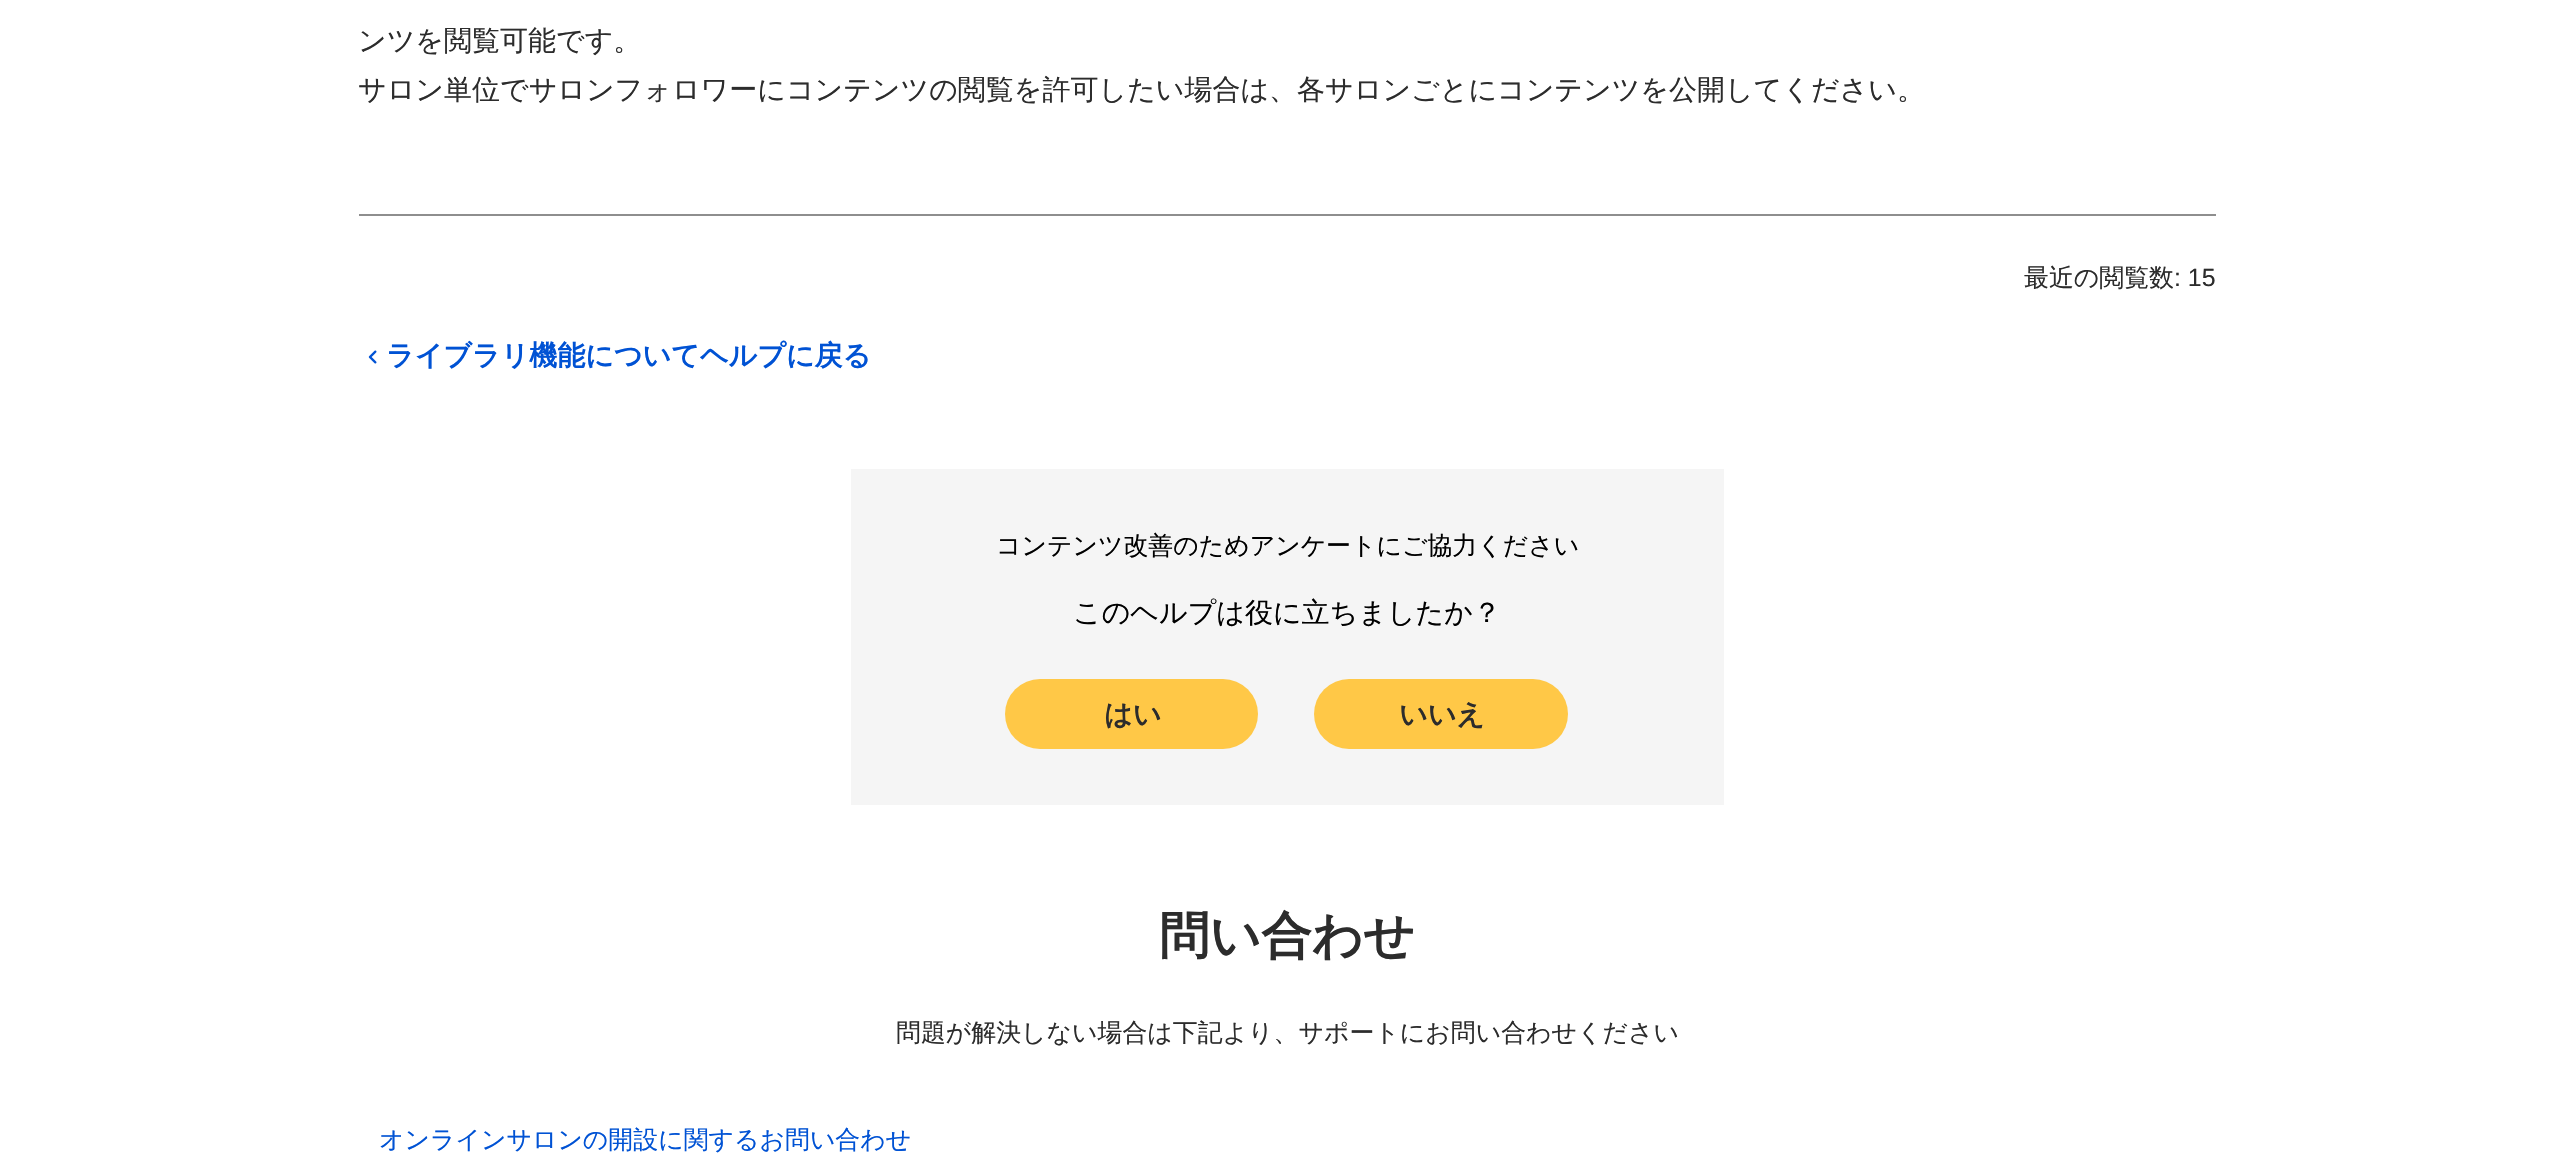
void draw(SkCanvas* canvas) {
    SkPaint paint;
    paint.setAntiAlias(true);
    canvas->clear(0xFFFFFFFF);
    paint.setColor(0xFF8E8E8E);
    canvas->drawRect(SkRect::MakeXYWH(359, 214, 1857, 2), paint);
    SkFont font1(fontMgr->matchFamilyStyle("WenQuanYi Zen Hei", SkFontStyle(500, SkFontStyle::kNormal_Width, SkFontStyle::kUpright_Slant)), 28);
    font1.setSubpixel(true);
    paint.setColor(0xFF2C2C2C);
    canvas->drawString("ンツを閲覧可能です。", 358, 50, font1, paint);
    canvas->drawString("サロン単位でサロンフォロワーにコンテンツの閲覧を許可したい場合は、各サロンごとにコンテンツを公開してください。", 358, 99, font1, paint);
    SkFont font2(fontMgr->matchFamilyStyle("WenQuanYi Zen Hei", SkFontStyle(500, SkFontStyle::kNormal_Width, SkFontStyle::kUpright_Slant)), 24.9f);
    font2.setSubpixel(true);
    canvas->drawString("最近の閲覧数", 2024, 286, font2, paint);
    SkFont font3(fontMgr->matchFamilyStyle("Liberation Sans", SkFontStyle::Normal()), 24.9f);
    font3.setSubpixel(true);
    canvas->drawString(": 15", 2174, 286, font3, paint);
    canvas->drawImageRect(SkImages::DeferredFromEncodedData(SkData::MakeFromFileName("img1.png")), SkRect::MakeXYWH(368, 350, 9, 14), SkSamplingOptions());
    SkFont font4(fontMgr->matchFamilyStyle("WenQuanYi Zen Hei", SkFontStyle::Bold()), 28);
    font4.setSubpixel(true);
    paint.setColor(0xFF0052D4);
    canvas->drawString("ライブラリ機能についてヘルプに戻る", 386, 365, font4, paint);
    paint.setColor(0xFFF5F5F5);
    canvas->drawRect(SkRect::MakeXYWH(851, 469, 873, 336), paint);
    paint.setColor(0xFF000000);
    canvas->drawString("コンテンツ改善のためアンケートにご協力ください", 996, 554, font2, paint);
    canvas->drawString("このヘルプは役に立ちましたか？", 1073, 622, font1, paint);
    paint.setColor(0xFFFFC847);
    canvas->drawRoundRect(SkRect::MakeXYWH(1005, 679, 253, 70), 35, 35, paint);
    paint.setColor(0xFF2C2C2C);
    canvas->drawString("はい", 1104, 724, font4, paint);
    paint.setColor(0xFFFFC847);
    canvas->drawRoundRect(SkRect::MakeXYWH(1314, 679, 254, 70), 35, 35, paint);
    paint.setColor(0xFF2C2C2C);
    canvas->drawString("いいえ", 1399, 724, font4, paint);
    SkFont font5(fontMgr->matchFamilyStyle("WenQuanYi Zen Hei", SkFontStyle::Bold()), 50.5f);
    font5.setSubpixel(true);
    canvas->drawString("問い合わせ", 1159, 953, font5, paint);
    canvas->drawString("問題が解決しない場合は下記より、サポートにお問い合わせください", 896, 1041, font2, paint);
    paint.setColor(0xFF0052D4);
    canvas->drawString("オンラインサロンの開設に関するお問い合わせ", 379, 1148, font2, paint);
}
